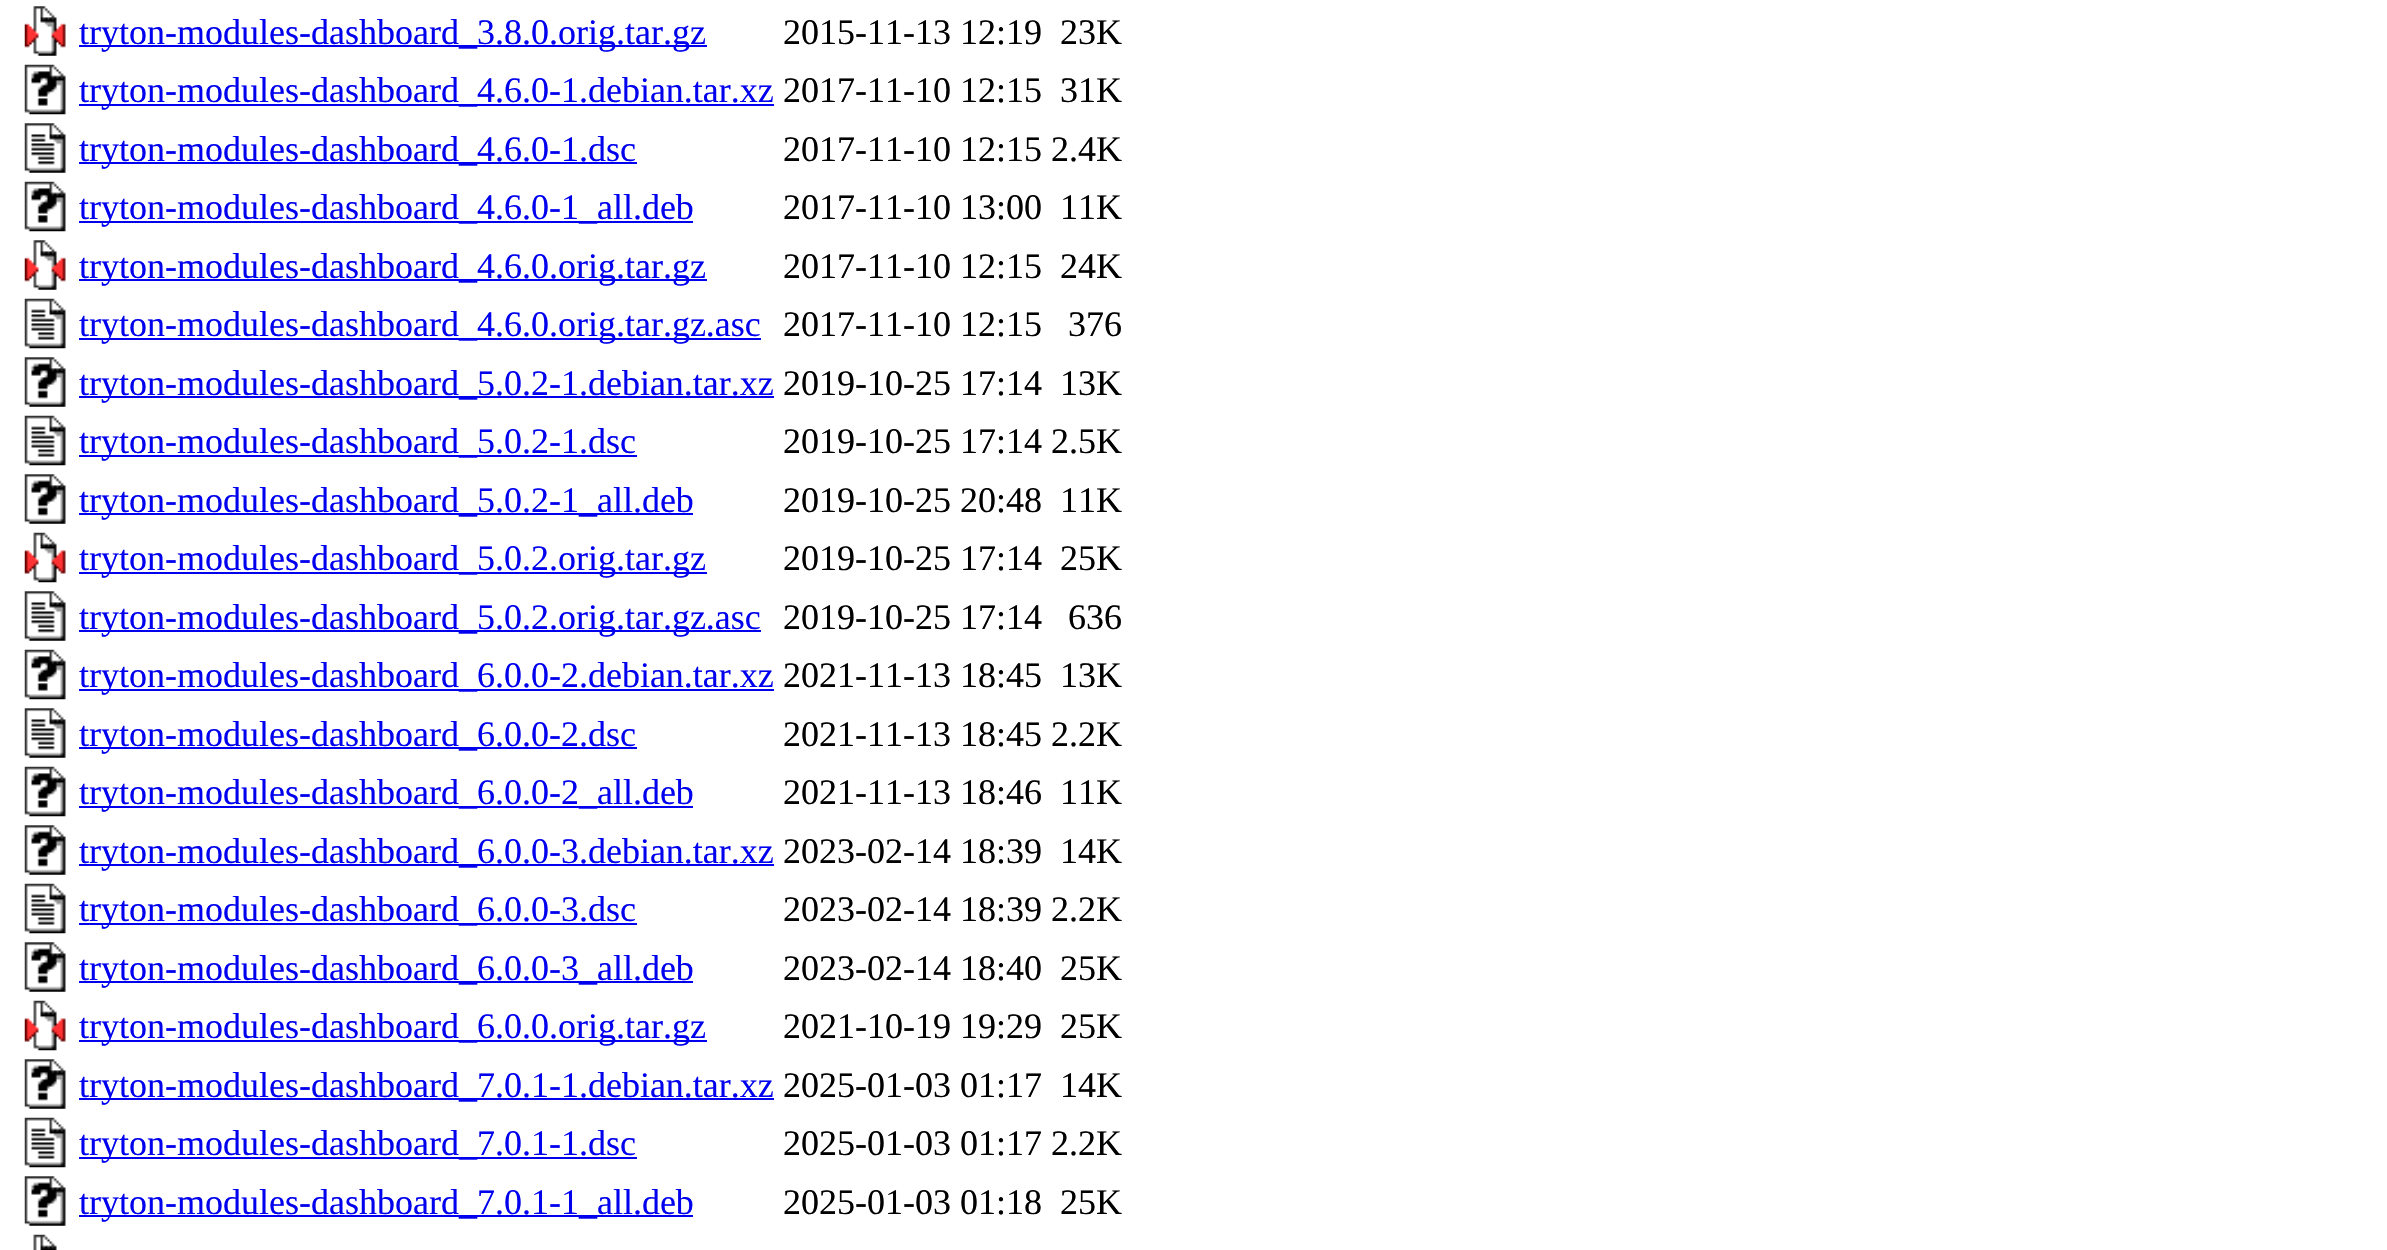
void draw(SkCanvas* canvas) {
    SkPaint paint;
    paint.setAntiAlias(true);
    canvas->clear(0xFFFFFFFF);
    canvas->drawImageRect(SkImages::DeferredFromEncodedData(SkData::MakeFromFileName("img1.png")), SkRect::MakeXYWH(24, 6, 42, 50), SkSamplingOptions());
    paint.setColor(0xFF0000EE);
    canvas->drawRect(SkRect::MakeXYWH(79, 45, 628, 2), paint);
    SkFont font1(fontMgr->matchFamilyStyle("Liberation Serif", SkFontStyle::Normal()), 36);
    font1.setSubpixel(true);
    canvas->drawString("tryton-modules-dashboard_3.8.0.orig.tar.gz", 79, 44, font1, paint);
    paint.setColor(0xFF000000);
    canvas->drawString("2015-11-13 12:19", 783, 44, font1, paint);
    canvas->drawString("23K", 1060, 44, font1, paint);
    canvas->drawImageRect(SkImages::DeferredFromEncodedData(SkData::MakeFromFileName("img2.png")), SkRect::MakeXYWH(24, 64, 42, 51), SkSamplingOptions());
    paint.setColor(0xFF0000EE);
    canvas->drawRect(SkRect::MakeXYWH(79, 104, 695, 2), paint);
    canvas->drawString("tryton-modules-dashboard_4.6.0-1.debian.tar.xz", 79, 102, font1, paint);
    paint.setColor(0xFF000000);
    canvas->drawString("2017-11-10 12:15", 783, 102, font1, paint);
    canvas->drawString("31K", 1060, 102, font1, paint);
    canvas->drawImageRect(SkImages::DeferredFromEncodedData(SkData::MakeFromFileName("img3.png")), SkRect::MakeXYWH(24, 123, 42, 50), SkSamplingOptions());
    paint.setColor(0xFF0000EE);
    canvas->drawRect(SkRect::MakeXYWH(79, 162, 558, 2), paint);
    canvas->drawString("tryton-modules-dashboard_4.6.0-1.dsc", 79, 161, font1, paint);
    paint.setColor(0xFF000000);
    canvas->drawString("2017-11-10 12:15 2.4K", 783, 161, font1, paint);
    canvas->drawImageRect(SkImages::DeferredFromEncodedData(SkData::MakeFromFileName("img2.png")), SkRect::MakeXYWH(24, 181, 42, 51), SkSamplingOptions());
    paint.setColor(0xFF0000EE);
    canvas->drawRect(SkRect::MakeXYWH(79, 221, 614, 2), paint);
    canvas->drawString("tryton-modules-dashboard_4.6.0-1_all.deb", 79, 219, font1, paint);
    paint.setColor(0xFF000000);
    canvas->drawString("2017-11-10 13:00", 783, 219, font1, paint);
    canvas->drawString("11K", 1060, 219, font1, paint);
    canvas->drawImageRect(SkImages::DeferredFromEncodedData(SkData::MakeFromFileName("img1.png")), SkRect::MakeXYWH(24, 240, 42, 50), SkSamplingOptions());
    paint.setColor(0xFF0000EE);
    canvas->drawRect(SkRect::MakeXYWH(79, 279, 628, 2), paint);
    canvas->drawString("tryton-modules-dashboard_4.6.0.orig.tar.gz", 79, 278, font1, paint);
    paint.setColor(0xFF000000);
    canvas->drawString("2017-11-10 12:15", 783, 278, font1, paint);
    canvas->drawString("24K", 1060, 278, font1, paint);
    canvas->drawImageRect(SkImages::DeferredFromEncodedData(SkData::MakeFromFileName("img4.png")), SkRect::MakeXYWH(24, 298, 42, 51), SkSamplingOptions());
    paint.setColor(0xFF0000EE);
    canvas->drawRect(SkRect::MakeXYWH(79, 338, 682, 2), paint);
    canvas->drawString("tryton-modules-dashboard_4.6.0.orig.tar.gz.asc", 79, 336, font1, paint);
    paint.setColor(0xFF000000);
    canvas->drawString("2017-11-10 12:15", 783, 336, font1, paint);
    canvas->drawString("376", 1068, 336, font1, paint);
    canvas->drawImageRect(SkImages::DeferredFromEncodedData(SkData::MakeFromFileName("img5.png")), SkRect::MakeXYWH(24, 357, 42, 50), SkSamplingOptions());
    paint.setColor(0xFF0000EE);
    canvas->drawRect(SkRect::MakeXYWH(79, 396, 695, 2), paint);
    canvas->drawString("tryton-modules-dashboard_5.0.2-1.debian.tar.xz", 79, 395, font1, paint);
    paint.setColor(0xFF000000);
    canvas->drawString("2019-10-25 17:14", 783, 395, font1, paint);
    canvas->drawString("13K", 1060, 395, font1, paint);
    canvas->drawImageRect(SkImages::DeferredFromEncodedData(SkData::MakeFromFileName("img6.png")), SkRect::MakeXYWH(24, 415, 42, 51), SkSamplingOptions());
    paint.setColor(0xFF0000EE);
    canvas->drawRect(SkRect::MakeXYWH(79, 455, 558, 2), paint);
    canvas->drawString("tryton-modules-dashboard_5.0.2-1.dsc", 79, 453, font1, paint);
    paint.setColor(0xFF000000);
    canvas->drawString("2019-10-25 17:14 2.5K", 783, 453, font1, paint);
    canvas->drawImageRect(SkImages::DeferredFromEncodedData(SkData::MakeFromFileName("img5.png")), SkRect::MakeXYWH(24, 474, 42, 50), SkSamplingOptions());
    paint.setColor(0xFF0000EE);
    canvas->drawRect(SkRect::MakeXYWH(79, 513, 614, 2), paint);
    canvas->drawString("tryton-modules-dashboard_5.0.2-1_all.deb", 79, 512, font1, paint);
    paint.setColor(0xFF000000);
    canvas->drawString("2019-10-25 20:48", 783, 512, font1, paint);
    canvas->drawString("11K", 1060, 512, font1, paint);
    canvas->drawImageRect(SkImages::DeferredFromEncodedData(SkData::MakeFromFileName("img7.png")), SkRect::MakeXYWH(24, 532, 42, 51), SkSamplingOptions());
    paint.setColor(0xFF0000EE);
    canvas->drawRect(SkRect::MakeXYWH(79, 572, 628, 2), paint);
    canvas->drawString("tryton-modules-dashboard_5.0.2.orig.tar.gz", 79, 570, font1, paint);
    paint.setColor(0xFF000000);
    canvas->drawString("2019-10-25 17:14", 783, 570, font1, paint);
    canvas->drawString("25K", 1060, 570, font1, paint);
    canvas->drawImageRect(SkImages::DeferredFromEncodedData(SkData::MakeFromFileName("img3.png")), SkRect::MakeXYWH(24, 591, 42, 50), SkSamplingOptions());
    paint.setColor(0xFF0000EE);
    canvas->drawRect(SkRect::MakeXYWH(79, 630, 682, 2), paint);
    canvas->drawString("tryton-modules-dashboard_5.0.2.orig.tar.gz.asc", 79, 629, font1, paint);
    paint.setColor(0xFF000000);
    canvas->drawString("2019-10-25 17:14", 783, 629, font1, paint);
    canvas->drawString("636", 1068, 629, font1, paint);
    canvas->drawImageRect(SkImages::DeferredFromEncodedData(SkData::MakeFromFileName("img2.png")), SkRect::MakeXYWH(24, 649, 42, 51), SkSamplingOptions());
    paint.setColor(0xFF0000EE);
    canvas->drawRect(SkRect::MakeXYWH(79, 689, 695, 2), paint);
    canvas->drawString("tryton-modules-dashboard_6.0.0-2.debian.tar.xz", 79, 687, font1, paint);
    paint.setColor(0xFF000000);
    canvas->drawString("2021-11-13 18:45", 783, 687, font1, paint);
    canvas->drawString("13K", 1060, 687, font1, paint);
    canvas->drawImageRect(SkImages::DeferredFromEncodedData(SkData::MakeFromFileName("img3.png")), SkRect::MakeXYWH(24, 708, 42, 50), SkSamplingOptions());
    paint.setColor(0xFF0000EE);
    canvas->drawRect(SkRect::MakeXYWH(79, 747, 558, 2), paint);
    canvas->drawString("tryton-modules-dashboard_6.0.0-2.dsc", 79, 746, font1, paint);
    paint.setColor(0xFF000000);
    canvas->drawString("2021-11-13 18:45 2.2K", 783, 746, font1, paint);
    canvas->drawImageRect(SkImages::DeferredFromEncodedData(SkData::MakeFromFileName("img2.png")), SkRect::MakeXYWH(24, 766, 42, 51), SkSamplingOptions());
    paint.setColor(0xFF0000EE);
    canvas->drawRect(SkRect::MakeXYWH(79, 806, 614, 2), paint);
    canvas->drawString("tryton-modules-dashboard_6.0.0-2_all.deb", 79, 804, font1, paint);
    paint.setColor(0xFF000000);
    canvas->drawString("2021-11-13 18:46", 783, 804, font1, paint);
    canvas->drawString("11K", 1060, 804, font1, paint);
    canvas->drawImageRect(SkImages::DeferredFromEncodedData(SkData::MakeFromFileName("img8.png")), SkRect::MakeXYWH(24, 825, 42, 50), SkSamplingOptions());
    paint.setColor(0xFF0000EE);
    canvas->drawRect(SkRect::MakeXYWH(79, 864, 695, 2), paint);
    canvas->drawString("tryton-modules-dashboard_6.0.0-3.debian.tar.xz", 79, 863, font1, paint);
    paint.setColor(0xFF000000);
    canvas->drawString("2023-02-14 18:39", 783, 863, font1, paint);
    canvas->drawString("14K", 1060, 863, font1, paint);
    canvas->drawImageRect(SkImages::DeferredFromEncodedData(SkData::MakeFromFileName("img4.png")), SkRect::MakeXYWH(24, 883, 42, 51), SkSamplingOptions());
    paint.setColor(0xFF0000EE);
    canvas->drawRect(SkRect::MakeXYWH(79, 923, 558, 2), paint);
    canvas->drawString("tryton-modules-dashboard_6.0.0-3.dsc", 79, 921, font1, paint);
    paint.setColor(0xFF000000);
    canvas->drawString("2023-02-14 18:39 2.2K", 783, 921, font1, paint);
    canvas->drawImageRect(SkImages::DeferredFromEncodedData(SkData::MakeFromFileName("img9.png")), SkRect::MakeXYWH(24, 942, 42, 50), SkSamplingOptions());
    paint.setColor(0xFF0000EE);
    canvas->drawRect(SkRect::MakeXYWH(79, 981, 614, 2), paint);
    canvas->drawString("tryton-modules-dashboard_6.0.0-3_all.deb", 79, 980, font1, paint);
    paint.setColor(0xFF000000);
    canvas->drawString("2023-02-14 18:40", 783, 980, font1, paint);
    canvas->drawString("25K", 1060, 980, font1, paint);
    canvas->drawImageRect(SkImages::DeferredFromEncodedData(SkData::MakeFromFileName("img7.png")), SkRect::MakeXYWH(24, 1000, 42, 51), SkSamplingOptions());
    paint.setColor(0xFF0000EE);
    canvas->drawRect(SkRect::MakeXYWH(79, 1040, 628, 2), paint);
    canvas->drawString("tryton-modules-dashboard_6.0.0.orig.tar.gz", 79, 1038, font1, paint);
    paint.setColor(0xFF000000);
    canvas->drawString("2021-10-19 19:29", 783, 1038, font1, paint);
    canvas->drawString("25K", 1060, 1038, font1, paint);
    canvas->drawImageRect(SkImages::DeferredFromEncodedData(SkData::MakeFromFileName("img5.png")), SkRect::MakeXYWH(24, 1059, 42, 50), SkSamplingOptions());
    paint.setColor(0xFF0000EE);
    canvas->drawRect(SkRect::MakeXYWH(79, 1098, 695, 2), paint);
    canvas->drawString("tryton-modules-dashboard_7.0.1-1.debian.tar.xz", 79, 1097, font1, paint);
    paint.setColor(0xFF000000);
    canvas->drawString("2025-01-03 01:17", 783, 1097, font1, paint);
    canvas->drawString("14K", 1060, 1097, font1, paint);
    canvas->drawImageRect(SkImages::DeferredFromEncodedData(SkData::MakeFromFileName("img4.png")), SkRect::MakeXYWH(24, 1117, 42, 51), SkSamplingOptions());
    paint.setColor(0xFF0000EE);
    canvas->drawRect(SkRect::MakeXYWH(79, 1157, 558, 2), paint);
    canvas->drawString("tryton-modules-dashboard_7.0.1-1.dsc", 79, 1155, font1, paint);
    paint.setColor(0xFF000000);
    canvas->drawString("2025-01-03 01:17 2.2K", 783, 1155, font1, paint);
    canvas->drawImageRect(SkImages::DeferredFromEncodedData(SkData::MakeFromFileName("img5.png")), SkRect::MakeXYWH(24, 1176, 42, 50), SkSamplingOptions());
    paint.setColor(0xFF0000EE);
    canvas->drawRect(SkRect::MakeXYWH(79, 1215, 614, 2), paint);
    canvas->drawString("tryton-modules-dashboard_7.0.1-1_all.deb", 79, 1214, font1, paint);
    paint.setColor(0xFF000000);
    canvas->drawString("2025-01-03 01:18", 783, 1214, font1, paint);
    canvas->drawString("25K", 1060, 1214, font1, paint);
    canvas->drawImageRect(SkImages::DeferredFromEncodedData(SkData::MakeFromFileName("img10.png")), SkRect::MakeXYWH(33, 1234, 24, 16), SkSamplingOptions());
}
